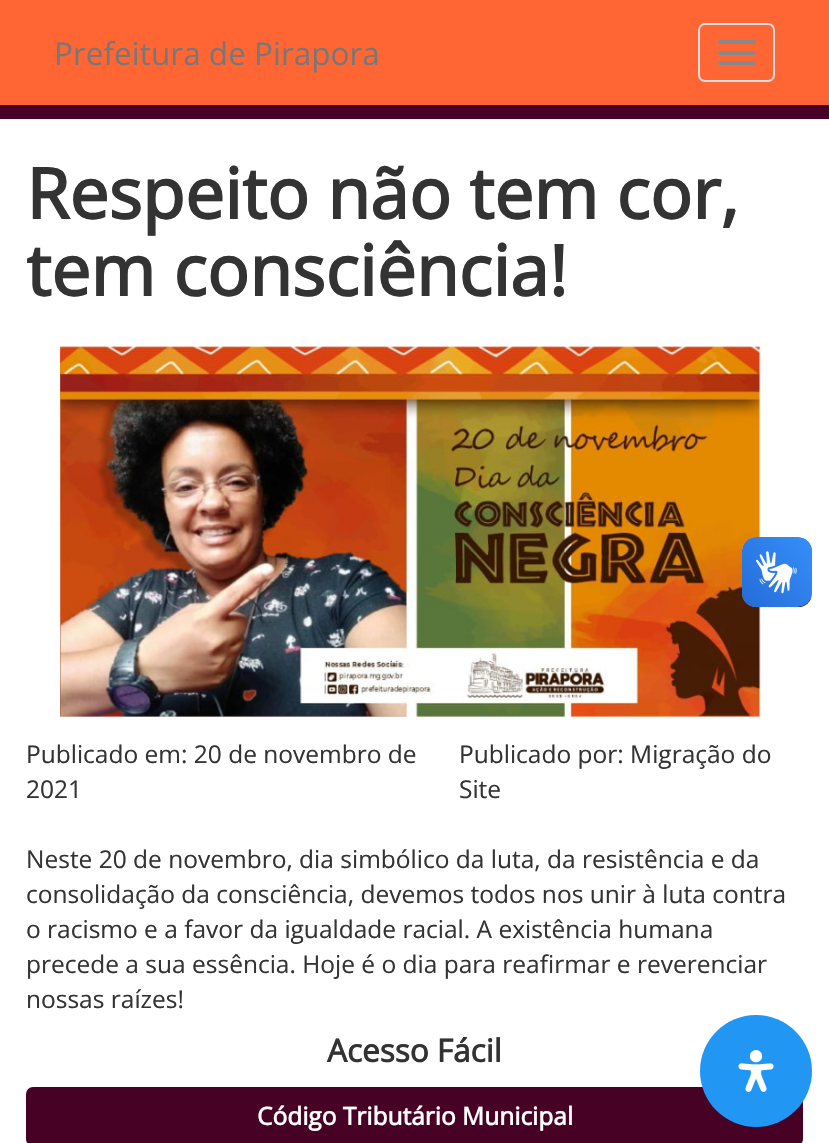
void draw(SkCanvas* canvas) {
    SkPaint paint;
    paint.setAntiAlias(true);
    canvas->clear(0xFFFFFFFF);
    paint.setColor(0xFFFF6634);
    canvas->drawRect(SkRect::MakeXYWH(0, 0, 829, 105), paint);
    paint.setColor(0xFF470124);
    canvas->drawRect(SkRect::MakeXYWH(0, 105, 829, 14), paint);
    SkFont font1(fontMgr->matchFamilyStyle("Open Sans", SkFontStyle::Normal()), 31.5f);
    font1.setSubpixel(true);
    paint.setColor(0xFF777777);
    canvas->drawString("Prefeitura de Pirapora", 54, 65, font1, paint);
    paint.setStyle(SkPaint::kStroke_Style);
    paint.setStrokeWidth(2);
    paint.setColor(0xFFDDDDDD);
    canvas->drawRoundRect(SkRect::MakeXYWH(699, 24, 75, 57), 6, 6, paint);
    paint.setStyle(SkPaint::kFill_Style);
    paint.setColor(0xFF888888);
    canvas->drawRoundRect(SkRect::MakeXYWH(718, 40, 38, 4), 2, 2, paint);
    canvas->drawRoundRect(SkRect::MakeXYWH(718, 51, 38, 4), 2, 2, paint);
    canvas->drawRoundRect(SkRect::MakeXYWH(718, 61, 38, 4), 2, 2, paint);
    SkFont font2(fontMgr->matchFamilyStyle("Open Sans", SkFontStyle::Bold()), 70);
    font2.setSubpixel(true);
    paint.setColor(0xFF333333);
    canvas->drawString("Respeito não tem cor,", 26, 219, font2, paint);
    canvas->drawString("tem consciência!", 26, 296, font2, paint);
    canvas->drawImageRect(SkImages::DeferredFromEncodedData(SkData::MakeFromFileName("img1.png")), SkRect::MakeXYWH(60, 346, 701, 371), SkSamplingOptions());
    SkFont font3(fontMgr->matchFamilyStyle("Open Sans", SkFontStyle::Normal()), 24.5f);
    font3.setSubpixel(true);
    canvas->drawString("Publicado em: 20 de novembro de", 26, 763, font3, paint);
    canvas->drawString("2021", 26, 798, font3, paint);
    canvas->drawString("Publicado por: Migração do", 459, 763, font3, paint);
    canvas->drawString("Site", 459, 798, font3, paint);
    canvas->drawString("Neste 20 de novembro, dia simbólico da luta, da resistência e da", 26, 868, font3, paint);
    canvas->drawString("consolidação da consciência, devemos todos nos unir à luta contra", 26, 903, font3, paint);
    canvas->drawString("o racismo e a favor da igualdade racial. A existência humana", 26, 938, font3, paint);
    canvas->drawString("precede a sua essência. Hoje é o dia para reafirmar e reverenciar", 26, 973, font3, paint);
    canvas->drawString("nossas raízes!", 26, 1008, font3, paint);
    SkFont font4(fontMgr->matchFamilyStyle("Open Sans", SkFontStyle::Bold()), 31.5f);
    font4.setSubpixel(true);
    canvas->drawString("Acesso Fácil", 327, 1062, font4, paint);
    paint.setColor(0xFF470124);
    canvas->drawRoundRect(SkRect::MakeXYWH(26, 1087, 777, 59), 7, 7, paint);
    SkFont font5(fontMgr->matchFamilyStyle("Open Sans", SkFontStyle::Bold()), 24.5f);
    font5.setSubpixel(true);
    paint.setColor(0xFFFFFFFF);
    canvas->drawString("Código Tributário Municipal", 257, 1125, font5, paint);
    canvas->drawImageRect(SkImages::DeferredFromEncodedData(SkData::MakeFromFileName("img2.png")), SkRect::MakeXYWH(742, 537, 70, 71), SkSamplingOptions());
    canvas->drawImageRect(SkImages::DeferredFromEncodedData(SkData::MakeFromFileName("img3.png")), SkRect::MakeXYWH(742, 537, 70, 70), SkSamplingOptions());
    paint.setColor(0xFF2196F3);
    canvas->drawCircle(756, 1071, 56, paint);
    canvas->drawImageRect(SkImages::DeferredFromEncodedData(SkData::MakeFromFileName("img4.png")), SkRect::MakeXYWH(738, 1050, 36, 42), SkSamplingOptions());
}
